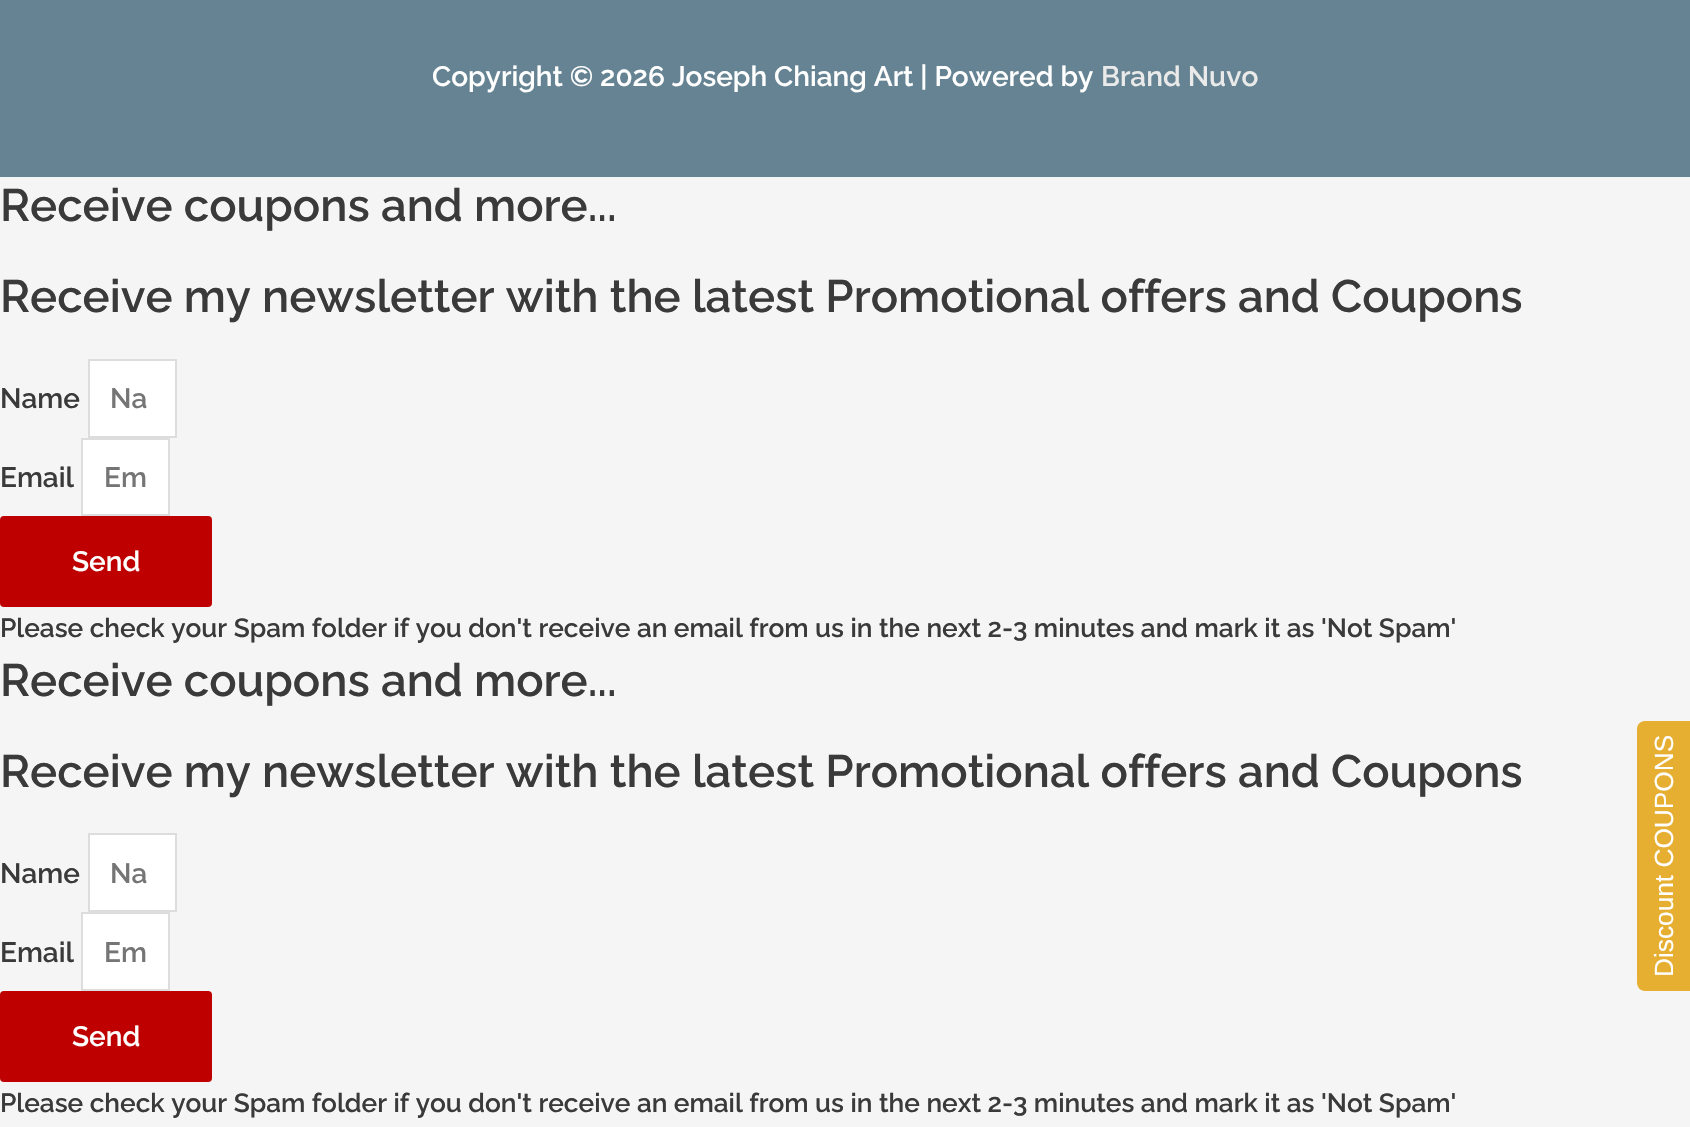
void draw(SkCanvas* canvas) {
    SkPaint paint;
    paint.setAntiAlias(true);
    canvas->clear(0xFFF5F5F5);
    paint.setColor(0xFF658392);
    canvas->drawRect(SkRect::MakeXYWH(0, 0, 1690, 177), paint);
    SkFont font1(fontMgr->matchFamilyStyle("Raleway", SkFontStyle(600, SkFontStyle::kNormal_Width, SkFontStyle::kUpright_Slant)), 28);
    font1.setSubpixel(true);
    paint.setColor(0xFFFFFFFF);
    canvas->drawString("Copyright © 2026 Joseph Chiang Art | Powered by", 432, 86, font1, paint);
    paint.setColor(0xFFEAEAEA);
    canvas->drawString("Brand Nuvo", 1101, 86, font1, paint);
    SkFont font2(fontMgr->matchFamilyStyle("Raleway", SkFontStyle(600, SkFontStyle::kNormal_Width, SkFontStyle::kUpright_Slant)), 45.5f);
    font2.setSubpixel(true);
    paint.setColor(0xFF3A3A3A);
    canvas->drawString("Receive coupons and more...", 0, 221, font2, paint);
    canvas->drawString("Receive my newsletter with the latest Promotional offers and Coupons", 0, 312, font2, paint);
    canvas->drawString("Name", 0, 408, font1, paint);
    paint.setColor(0xFFFFFFFF);
    canvas->drawRect(SkRect::MakeXYWH(89, 360, 87, 77), paint);
    paint.setStyle(SkPaint::kStroke_Style);
    paint.setStrokeWidth(2);
    paint.setColor(0xFFDDDDDD);
    canvas->drawRect(SkRect::MakeXYWH(89, 360, 87, 77), paint);
    paint.setStyle(SkPaint::kFill_Style);
    paint.setColor(0xFF757575);
    canvas->drawString("Na", 110, 408, font1, paint);
    paint.setColor(0xFF3A3A3A);
    canvas->drawString("Email", 0, 487, font1, paint);
    paint.setColor(0xFFFFFFFF);
    canvas->drawRect(SkRect::MakeXYWH(82, 439, 87, 76), paint);
    paint.setStyle(SkPaint::kStroke_Style);
    paint.setColor(0xFFDDDDDD);
    canvas->drawRect(SkRect::MakeXYWH(82, 439, 87, 76), paint);
    paint.setStyle(SkPaint::kFill_Style);
    paint.setColor(0xFF757575);
    canvas->drawString("Em", 104, 487, font1, paint);
    paint.setColor(0xFFBF0001);
    canvas->drawRoundRect(SkRect::MakeXYWH(1, 517, 210, 89), 3, 3, paint);
    paint.setStyle(SkPaint::kStroke_Style);
    canvas->drawRoundRect(SkRect::MakeXYWH(1, 517, 210, 89), 3, 3, paint);
    paint.setStyle(SkPaint::kFill_Style);
    paint.setColor(0xFFFFFFFF);
    canvas->drawString("Send", 72, 571, font1, paint);
    SkFont font3(fontMgr->matchFamilyStyle("Raleway", SkFontStyle(600, SkFontStyle::kNormal_Width, SkFontStyle::kUpright_Slant)), 26.25f);
    font3.setSubpixel(true);
    paint.setColor(0xFF3A3A3A);
    canvas->drawString("Please check your Spam folder if you don't receive an email from us in the next 2-3 minutes and mark it as 'Not Spam'", 0, 637, font3, paint);
    canvas->drawString("Receive coupons and more...", 0, 696, font2, paint);
    canvas->drawString("Receive my newsletter with the latest Promotional offers and Coupons", 0, 787, font2, paint);
    canvas->drawString("Name", 0, 883, font1, paint);
    paint.setColor(0xFFFFFFFF);
    canvas->drawRect(SkRect::MakeXYWH(89, 834, 87, 77), paint);
    paint.setStyle(SkPaint::kStroke_Style);
    paint.setColor(0xFFDDDDDD);
    canvas->drawRect(SkRect::MakeXYWH(89, 834, 87, 77), paint);
    paint.setStyle(SkPaint::kFill_Style);
    paint.setColor(0xFF757575);
    canvas->drawString("Na", 110, 883, font1, paint);
    paint.setColor(0xFF3A3A3A);
    canvas->drawString("Email", 0, 962, font1, paint);
    paint.setColor(0xFFFFFFFF);
    canvas->drawRect(SkRect::MakeXYWH(82, 913, 87, 77), paint);
    paint.setStyle(SkPaint::kStroke_Style);
    paint.setColor(0xFFDDDDDD);
    canvas->drawRect(SkRect::MakeXYWH(82, 913, 87, 77), paint);
    paint.setStyle(SkPaint::kFill_Style);
    paint.setColor(0xFF757575);
    canvas->drawString("Em", 104, 962, font1, paint);
    paint.setColor(0xFFBF0001);
    canvas->drawRoundRect(SkRect::MakeXYWH(1, 992, 210, 89), 3, 3, paint);
    paint.setStyle(SkPaint::kStroke_Style);
    canvas->drawRoundRect(SkRect::MakeXYWH(1, 992, 210, 89), 3, 3, paint);
    paint.setStyle(SkPaint::kFill_Style);
    paint.setColor(0xFFFFFFFF);
    canvas->drawString("Send", 72, 1046, font1, paint);
    paint.setColor(0xFF3A3A3A);
    canvas->drawString("Please check your Spam folder if you don't receive an email from us in the next 2-3 minutes and mark it as 'Not Spam'", 0, 1112, font3, paint);
    paint.setColor(0xFFE7AF32);
    canvas->drawPath(SkPathBuilder().moveTo(1637, 982).lineTo(1637, 729).cubicTo(1637, 725, 1640, 721, 1645, 721).lineTo(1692, 721).lineTo(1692, 991).lineTo(1645, 991).cubicTo(1640, 991, 1637, 987, 1637, 982).close().detach(), paint);
    SkFont font4(fontMgr->matchFamilyStyle("Liberation Sans", SkFontStyle::Normal()), 26.25f);
    font4.setSubpixel(true);
    paint.setColor(0xFFFFFFFF);
    canvas->save();
    canvas->rotate(-90, 1673, 977);
    canvas->drawString("Discount COUPONS", 1673, 977, font4, paint);
    canvas->restore();
}
